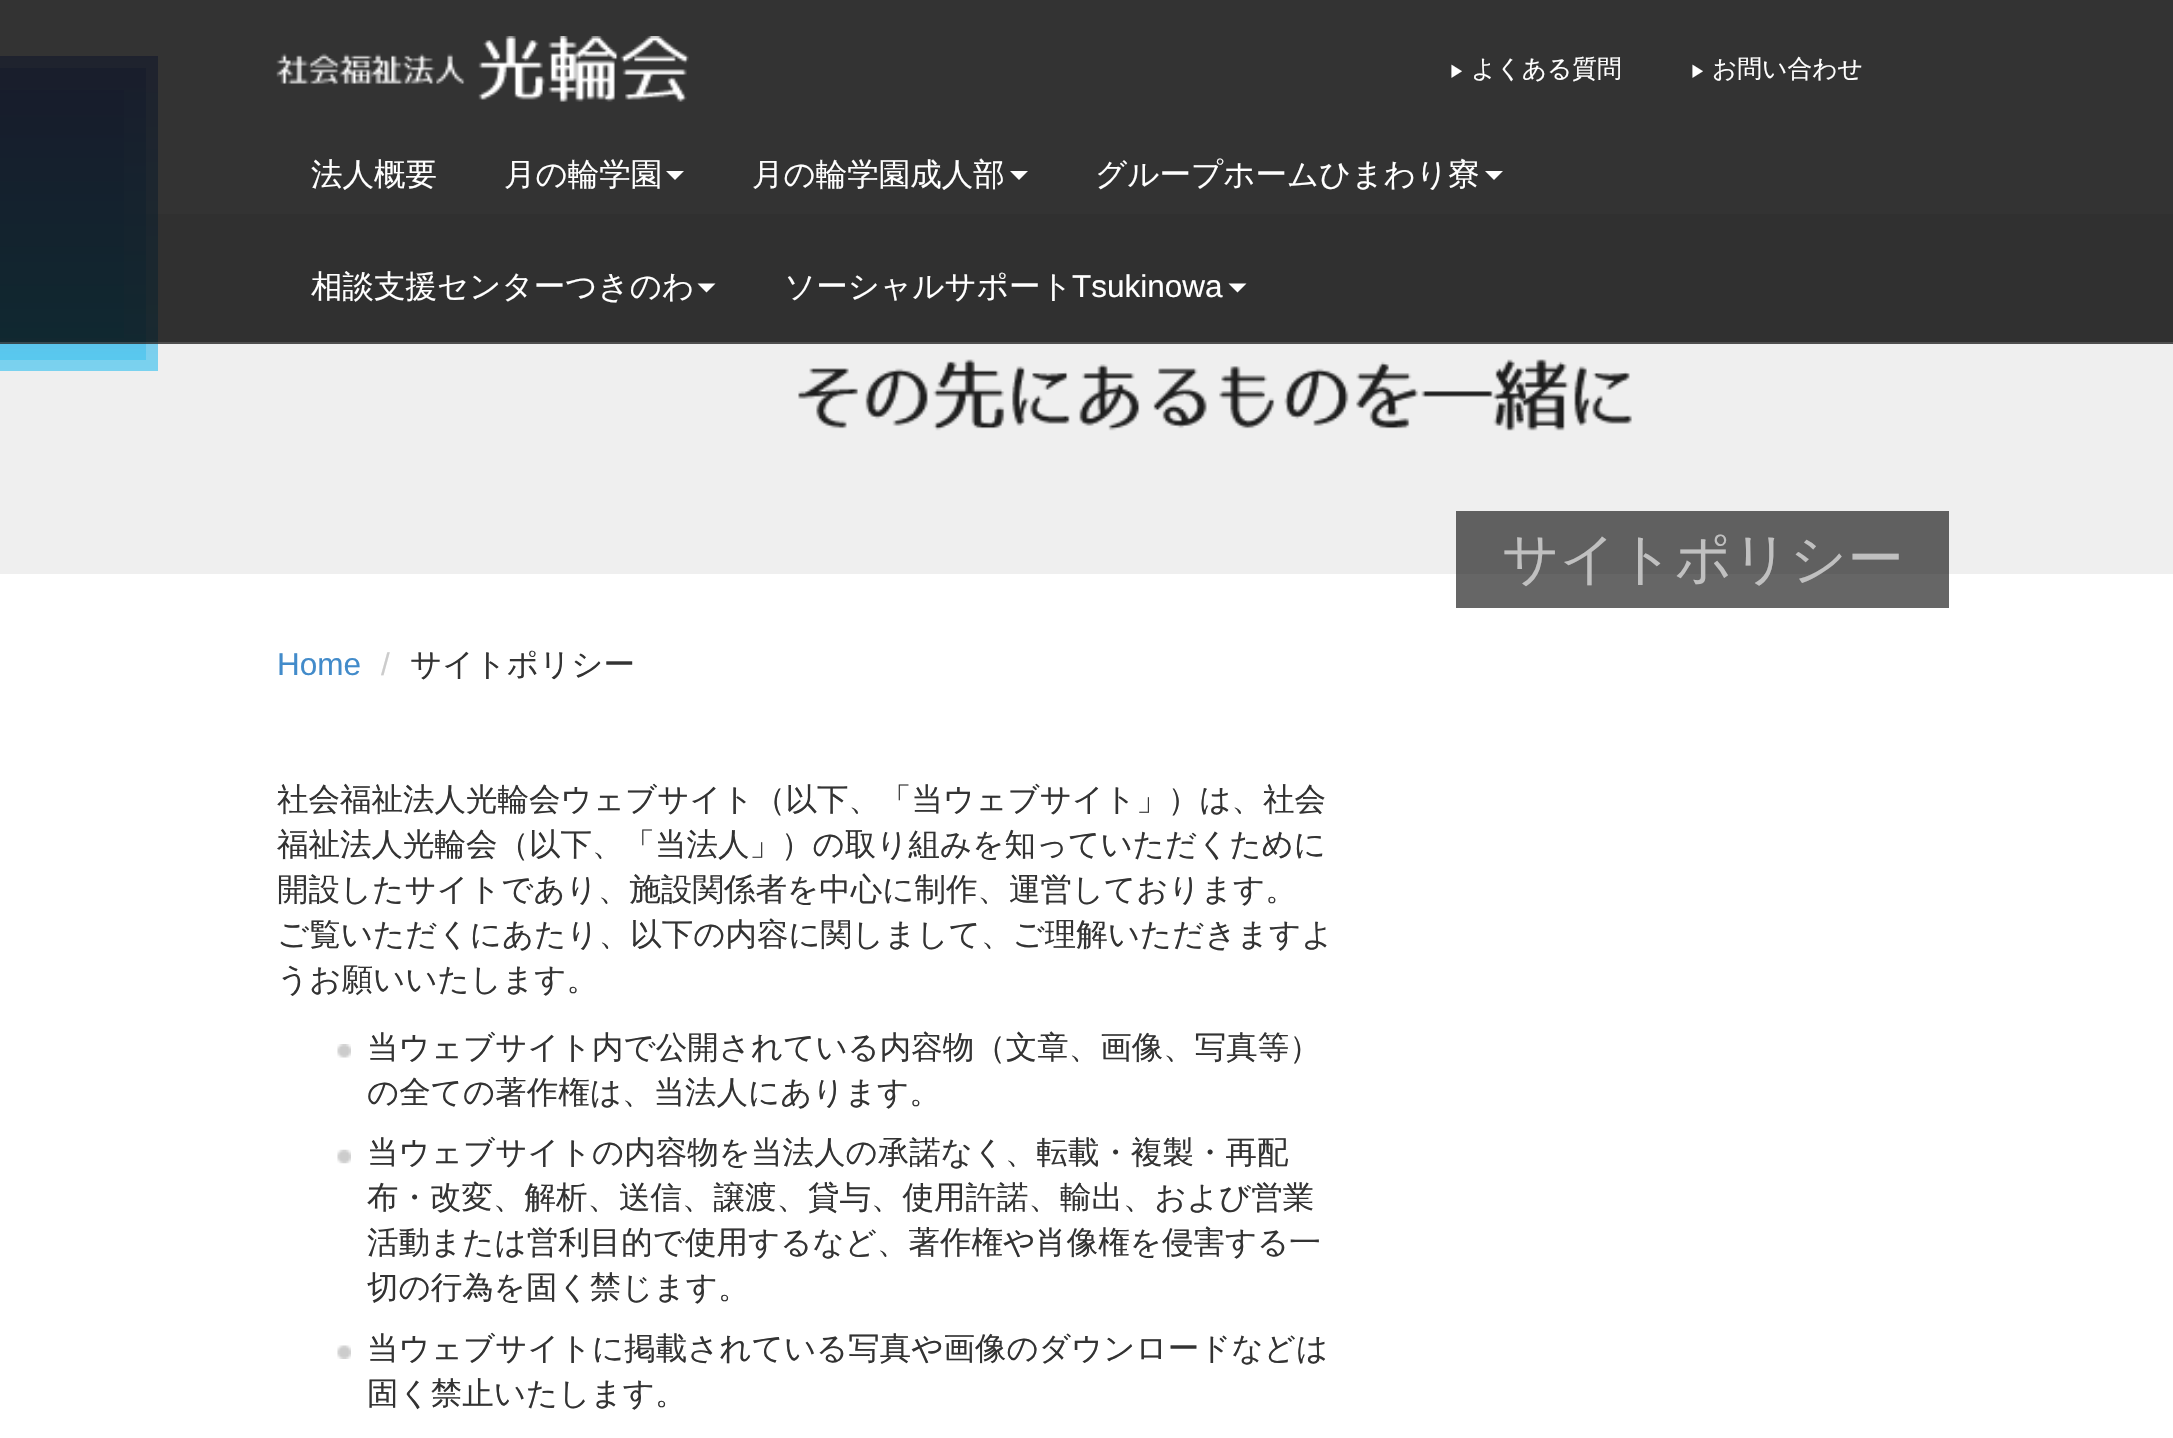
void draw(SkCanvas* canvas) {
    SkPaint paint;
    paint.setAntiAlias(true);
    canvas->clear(0xFFFFFFFF);
    paint.setColor(0xFF666666);
    canvas->drawRect(SkRect::MakeXYWH(1456, 574, 493, 34), paint);
    paint.setColor(0xFFEFEFEF);
    canvas->drawRect(SkRect::MakeXYWH(0, 214, 2173, 360), paint);
    {
        const SkColor colors[] = {0xB348C6EF, 0xB36F86D6};
        const float stops[] = {0, 1};
        const SkPoint ends[] = {{0, 360}, {0, 68}};
        paint.setShader(SkGradientShader::MakeLinear(ends, colors, stops, 2, SkTileMode::kClamp));
        paint.setAlpha(255);
    }
    canvas->drawRect(SkRect::MakeXYWH(0, 68, 146, 292), paint);
    {
        const SkColor colors[] = {0xB348C6EF, 0xB36F86D6};
        const float stops[] = {0, 1};
        const SkPoint ends[] = {{0, 371}, {0, 56}};
        paint.setShader(SkGradientShader::MakeLinear(ends, colors, stops, 2, SkTileMode::kClamp));
        paint.setAlpha(255);
    }
    canvas->drawRect(SkRect::MakeXYWH(0, 56, 158, 315), paint);
    {
        const SkColor colors[] = {0xB348C6EF, 0xB36F86D6};
        const float stops[] = {0, 1};
        const SkPoint ends[] = {{0, 338}, {0, 90}};
        paint.setShader(SkGradientShader::MakeLinear(ends, colors, stops, 2, SkTileMode::kClamp));
        paint.setAlpha(255);
    }
    canvas->drawRect(SkRect::MakeXYWH(0, 90, 124, 248), paint);
    paint.setShader(nullptr);
    paint.setColor(0xCC000000);
    canvas->drawRect(SkRect::MakeXYWH(0, 0, 2173, 344), paint);
    paint.setColor(0x26FFFFFF);
    canvas->drawRect(SkRect::MakeXYWH(0, 342, 2173, 2), paint);
    canvas->drawImageRect(SkImages::DeferredFromEncodedData(SkData::MakeFromFileName("img1.png")), SkRect::MakeXYWH(276, 36, 413, 66), SkSamplingOptions());
    SkFont font1(fontMgr->matchFamilyStyle("WenQuanYi Zen Hei", SkFontStyle(500, SkFontStyle::kNormal_Width, SkFontStyle::kUpright_Slant)), 16);
    font1.setSubpixel(true);
    paint.setColor(0xFFFFFFFF);
    canvas->drawString("▶", 1449, 77, font1, paint);
    SkFont font2(fontMgr->matchFamilyStyle("WenQuanYi Zen Hei", SkFontStyle(500, SkFontStyle::kNormal_Width, SkFontStyle::kUpright_Slant)), 24.75f);
    font2.setSubpixel(true);
    canvas->drawString("よくある質問", 1471, 77, font2, paint);
    canvas->drawString("▶", 1690, 77, font1, paint);
    canvas->drawString("お問い合わせ", 1712, 77, font2, paint);
    SkFont font3(fontMgr->matchFamilyStyle("WenQuanYi Zen Hei", SkFontStyle(500, SkFontStyle::kNormal_Width, SkFontStyle::kUpright_Slant)), 31.5f);
    font3.setSubpixel(true);
    canvas->drawString("法人概要", 311, 185, font3, paint);
    canvas->drawString("月の輪学園", 504, 185, font3, paint);
    canvas->drawPath(SkPathBuilder().moveTo(666, 171).lineTo(684, 171).lineTo(675, 180).close().detach(), paint);
    canvas->drawString("月の輪学園成人部", 752, 185, font3, paint);
    canvas->drawPath(SkPathBuilder().moveTo(1010, 171).lineTo(1028, 171).lineTo(1019, 180).close().detach(), paint);
    canvas->drawString("グループホームひまわり寮", 1095, 185, font3, paint);
    canvas->drawPath(SkPathBuilder().moveTo(1485, 171).lineTo(1503, 171).lineTo(1494, 180).close().detach(), paint);
    canvas->drawString("相談支援センターつきのわ", 311, 297, font3, paint);
    canvas->drawPath(SkPathBuilder().moveTo(697.5f, 283.5f).lineTo(715.5f, 283.5f).lineTo(706.5f, 292.5f).close().detach(), paint);
    canvas->drawString("ソーシャルサポート", 784, 297, font3, paint);
    SkFont font4(fontMgr->matchFamilyStyle("Liberation Sans", SkFontStyle::Normal()), 31.5f);
    font4.setSubpixel(true);
    canvas->drawString("Tsukinowa", 1072, 297, font4, paint);
    canvas->drawPath(SkPathBuilder().moveTo(1228.5f, 283.5f).lineTo(1246.5f, 283.5f).lineTo(1237.5f, 292.5f).close().detach(), paint);
    paint.setColor(0xFF606060);
    canvas->drawRect(SkRect::MakeXYWH(1456, 511, 493, 63), paint);
    canvas->drawImageRect(SkImages::DeferredFromEncodedData(SkData::MakeFromFileName("img2.png")), SkRect::MakeXYWH(798, 359, 834, 72), SkSamplingOptions());
    SkFont font5(fontMgr->matchFamilyStyle("WenQuanYi Zen Hei", SkFontStyle(500, SkFontStyle::kNormal_Width, SkFontStyle::kUpright_Slant)), 56.25f);
    font5.setSubpixel(true);
    paint.setColor(0xFFC0C0C0);
    canvas->drawString("サイトポリシー", 1502, 578, font5, paint);
    paint.setColor(0xFF428BCA);
    canvas->drawString("Home", 277, 675, font4, paint);
    paint.setColor(0xFFCCCCCC);
    canvas->drawString("/", 381, 675, font4, paint);
    paint.setColor(0xFF333333);
    canvas->drawString("サイトポリシー", 410, 675, font3, paint);
    canvas->drawString("社会福祉法人光輪会ウェブサイト（以下、「当ウェブサイト」）は、社会", 277, 810, font3, paint);
    canvas->drawString("福祉法人光輪会（以下、「当法人」）の取り組みを知っていただくために", 277, 855, font3, paint);
    canvas->drawString("開設したサイトであり、施設関係者を中心に制作、運営しております。", 277, 900, font3, paint);
    canvas->drawString("ご覧いただくにあたり、以下の内容に関しまして、ご理解いただきますよ", 277, 945, font3, paint);
    canvas->drawString("うお願いいたします。", 277, 990, font3, paint);
    canvas->drawImageRect(SkImages::DeferredFromEncodedData(SkData::MakeFromFileName("img3.png")), SkRect::MakeXYWH(337, 1044, 14, 14), SkSamplingOptions());
    canvas->drawString("当ウェブサイト内で公開されている内容物（文章、画像、写真等）", 367, 1058, font3, paint);
    canvas->drawString("の全ての著作権は、当法人にあります。", 367, 1103, font3, paint);
    canvas->drawImageRect(SkImages::DeferredFromEncodedData(SkData::MakeFromFileName("img4.png")), SkRect::MakeXYWH(337, 1149, 14, 15), SkSamplingOptions());
    canvas->drawString("当ウェブサイトの内容物を当法人の承諾なく、転載・複製・再配", 367, 1163, font3, paint);
    canvas->drawString("布・改変、解析、送信、譲渡、貸与、使用許諾、輸出、および営業", 367, 1208, font3, paint);
    canvas->drawString("活動または営利目的で使用するなど、著作権や肖像権を侵害する一", 367, 1253, font3, paint);
    canvas->drawString("切の行為を固く禁じます。", 367, 1298, font3, paint);
    canvas->drawImageRect(SkImages::DeferredFromEncodedData(SkData::MakeFromFileName("img5.png")), SkRect::MakeXYWH(337, 1345, 14, 14), SkSamplingOptions());
    canvas->drawString("当ウェブサイトに掲載されている写真や画像のダウンロードなどは", 367, 1359, font3, paint);
    canvas->drawString("固く禁止いたします。", 367, 1404, font3, paint);
}
